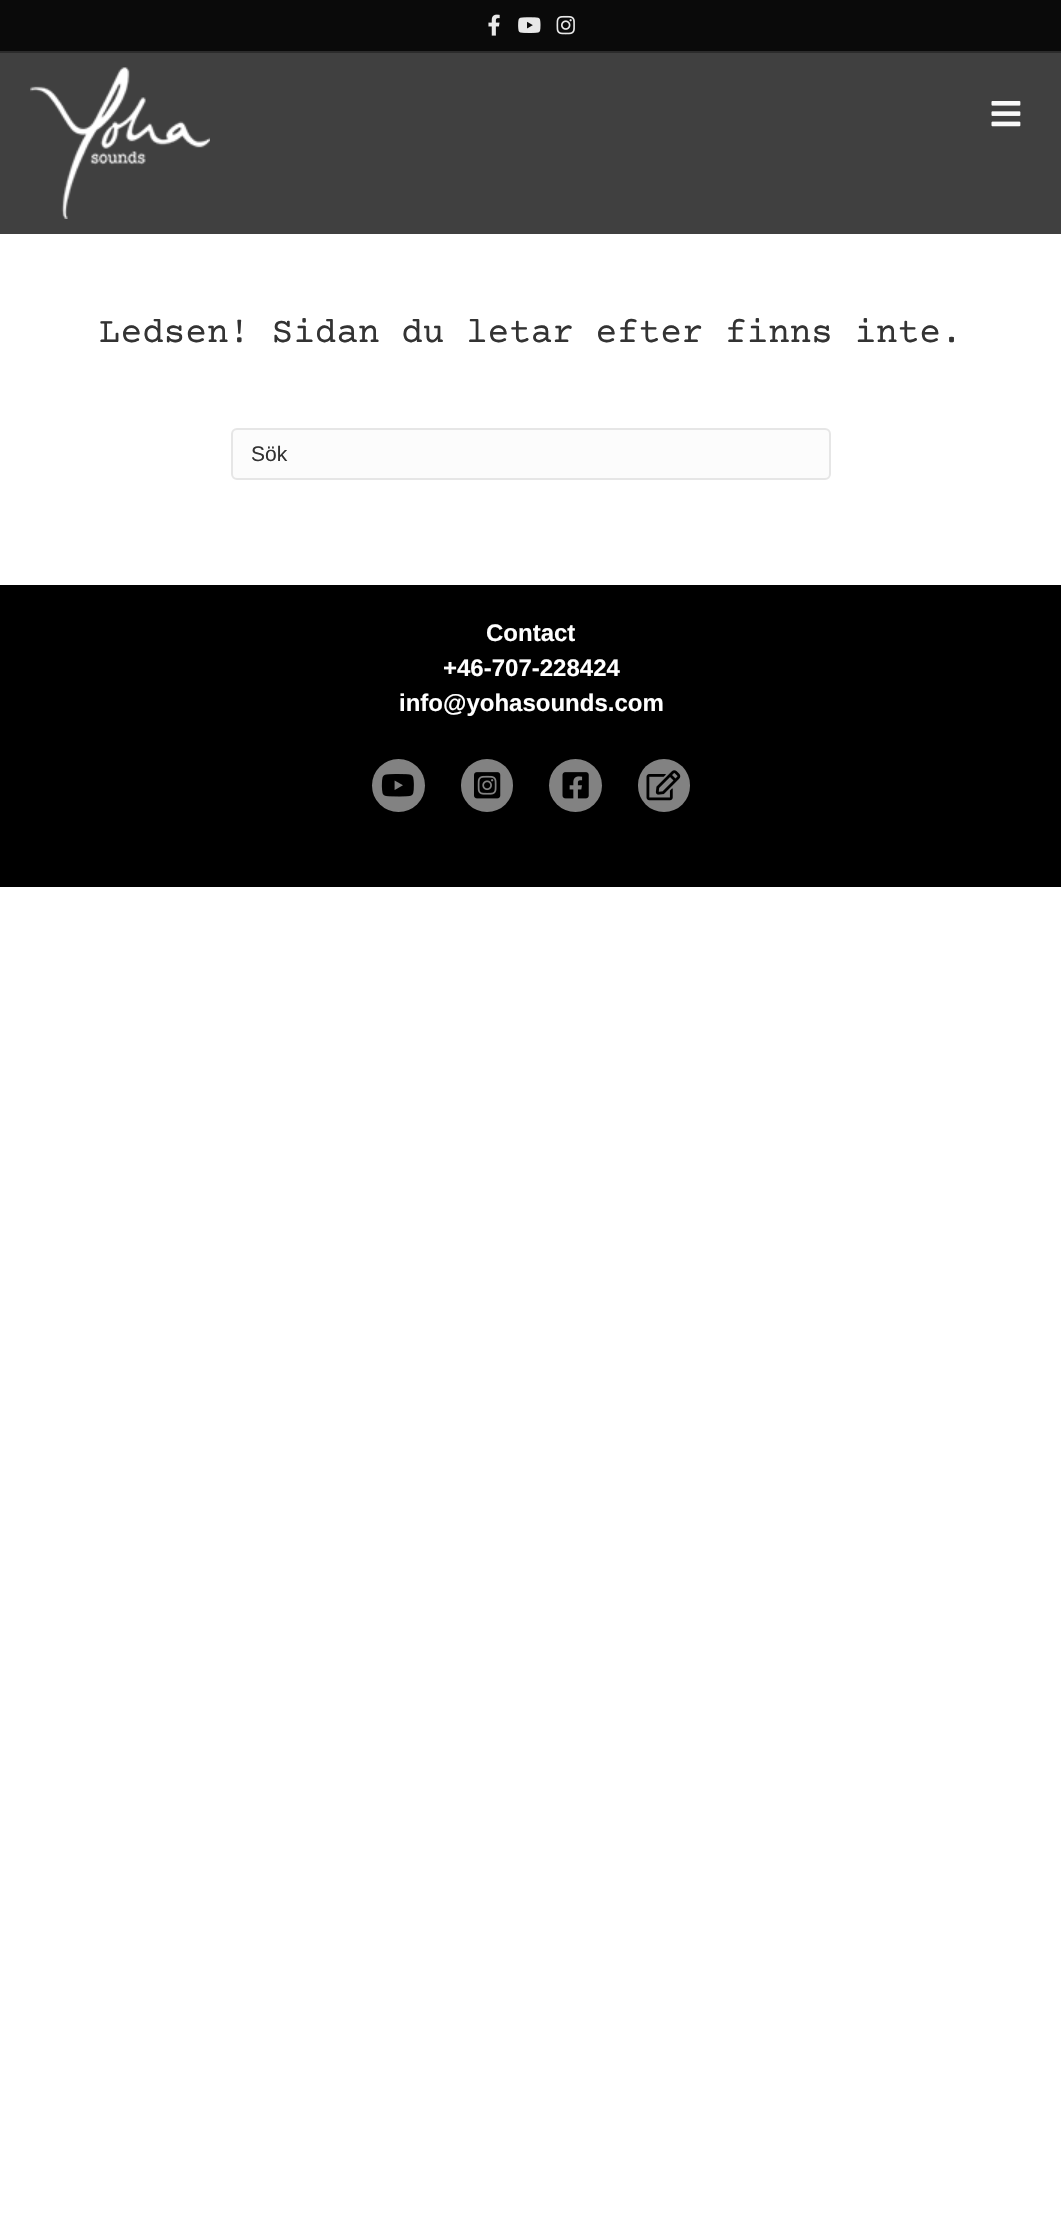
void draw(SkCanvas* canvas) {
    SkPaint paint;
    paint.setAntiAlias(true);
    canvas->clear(0xFFFFFFFF);
    paint.setColor(0xFF0A0A0A);
    canvas->drawRect(SkRect::MakeXYWH(0, 0, 1061, 51), paint);
    paint.setColor(0xFF2B2B2B);
    canvas->drawRect(SkRect::MakeXYWH(0, 51, 1061, 2), paint);
    canvas->drawImageRect(SkImages::DeferredFromEncodedData(SkData::MakeFromFileName("img1.png")), SkRect::MakeXYWH(488, 14, 12, 22), SkSamplingOptions());
    canvas->drawImageRect(SkImages::DeferredFromEncodedData(SkData::MakeFromFileName("img2.png")), SkRect::MakeXYWH(518, 17, 23, 16), SkSamplingOptions());
    canvas->drawImageRect(SkImages::DeferredFromEncodedData(SkData::MakeFromFileName("img3.png")), SkRect::MakeXYWH(556, 15, 19, 20), SkSamplingOptions());
    paint.setColor(0xFF404040);
    canvas->drawRect(SkRect::MakeXYWH(0, 53, 1061, 181), paint);
    canvas->drawImageRect(SkImages::DeferredFromEncodedData(SkData::MakeFromFileName("img4.png")), SkRect::MakeXYWH(30, 67, 180, 152), SkSamplingOptions());
    canvas->drawImageRect(SkImages::DeferredFromEncodedData(SkData::MakeFromFileName("img5.png")), SkRect::MakeXYWH(991, 101, 30, 26), SkSamplingOptions());
    SkFont font1(fontMgr->matchFamilyStyle("Courier Prime", SkFontStyle::Normal()), 36);
    font1.setSubpixel(true);
    paint.setColor(0xFF333333);
    canvas->drawString("Ledsen! Sidan du letar efter finns inte.", 99, 342, font1, paint);
    paint.setColor(0xFFFCFCFC);
    canvas->drawRoundRect(SkRect::MakeXYWH(232, 429, 598, 50), 5, 5, paint);
    paint.setStyle(SkPaint::kStroke_Style);
    paint.setStrokeWidth(2);
    paint.setColor(0xFFE6E6E6);
    canvas->drawRoundRect(SkRect::MakeXYWH(232, 429, 598, 50), 5, 5, paint);
    SkFont font2(fontMgr->matchFamilyStyle("Liberation Sans", SkFontStyle::Normal()), 21);
    font2.setSubpixel(true);
    paint.setStyle(SkPaint::kFill_Style);
    paint.setColor(0xFF333333);
    canvas->drawString("Sök", 251, 461, font2, paint);
    paint.setColor(0xFF000000);
    canvas->drawRect(SkRect::MakeXYWH(0, 585, 1061, 302), paint);
    SkFont font3(fontMgr->matchFamilyStyle("Liberation Sans", SkFontStyle::Bold()), 24);
    font3.setSubpixel(true);
    paint.setColor(0xFFFFFFFF);
    canvas->drawString("Contact", 486, 641, font3, paint);
    canvas->drawString("+46-707-228424", 443, 676, font3, paint);
    canvas->drawString("info@yohasounds.com", 399, 711, font3, paint);
    paint.setColor(0xFF828282);
    canvas->drawCircle(398.5f, 785.5f, 26.5f, paint);
    canvas->drawImageRect(SkImages::DeferredFromEncodedData(SkData::MakeFromFileName("img6.png")), SkRect::MakeXYWH(381, 774, 33, 23), SkSamplingOptions());
    canvas->drawRoundRect(SkRect::MakeXYWH(461, 759, 52, 53), 26, 26, paint);
    canvas->drawImageRect(SkImages::DeferredFromEncodedData(SkData::MakeFromFileName("img7.png")), SkRect::MakeXYWH(474, 772, 27, 27), SkSamplingOptions());
    canvas->drawCircle(575.5f, 785.5f, 26.5f, paint);
    canvas->drawImageRect(SkImages::DeferredFromEncodedData(SkData::MakeFromFileName("img8.png")), SkRect::MakeXYWH(562, 772, 27, 27), SkSamplingOptions());
    canvas->drawRoundRect(SkRect::MakeXYWH(638, 759, 52, 53), 26, 26, paint);
    canvas->drawImageRect(SkImages::DeferredFromEncodedData(SkData::MakeFromFileName("img9.png")), SkRect::MakeXYWH(646, 770, 35, 31), SkSamplingOptions());
}
